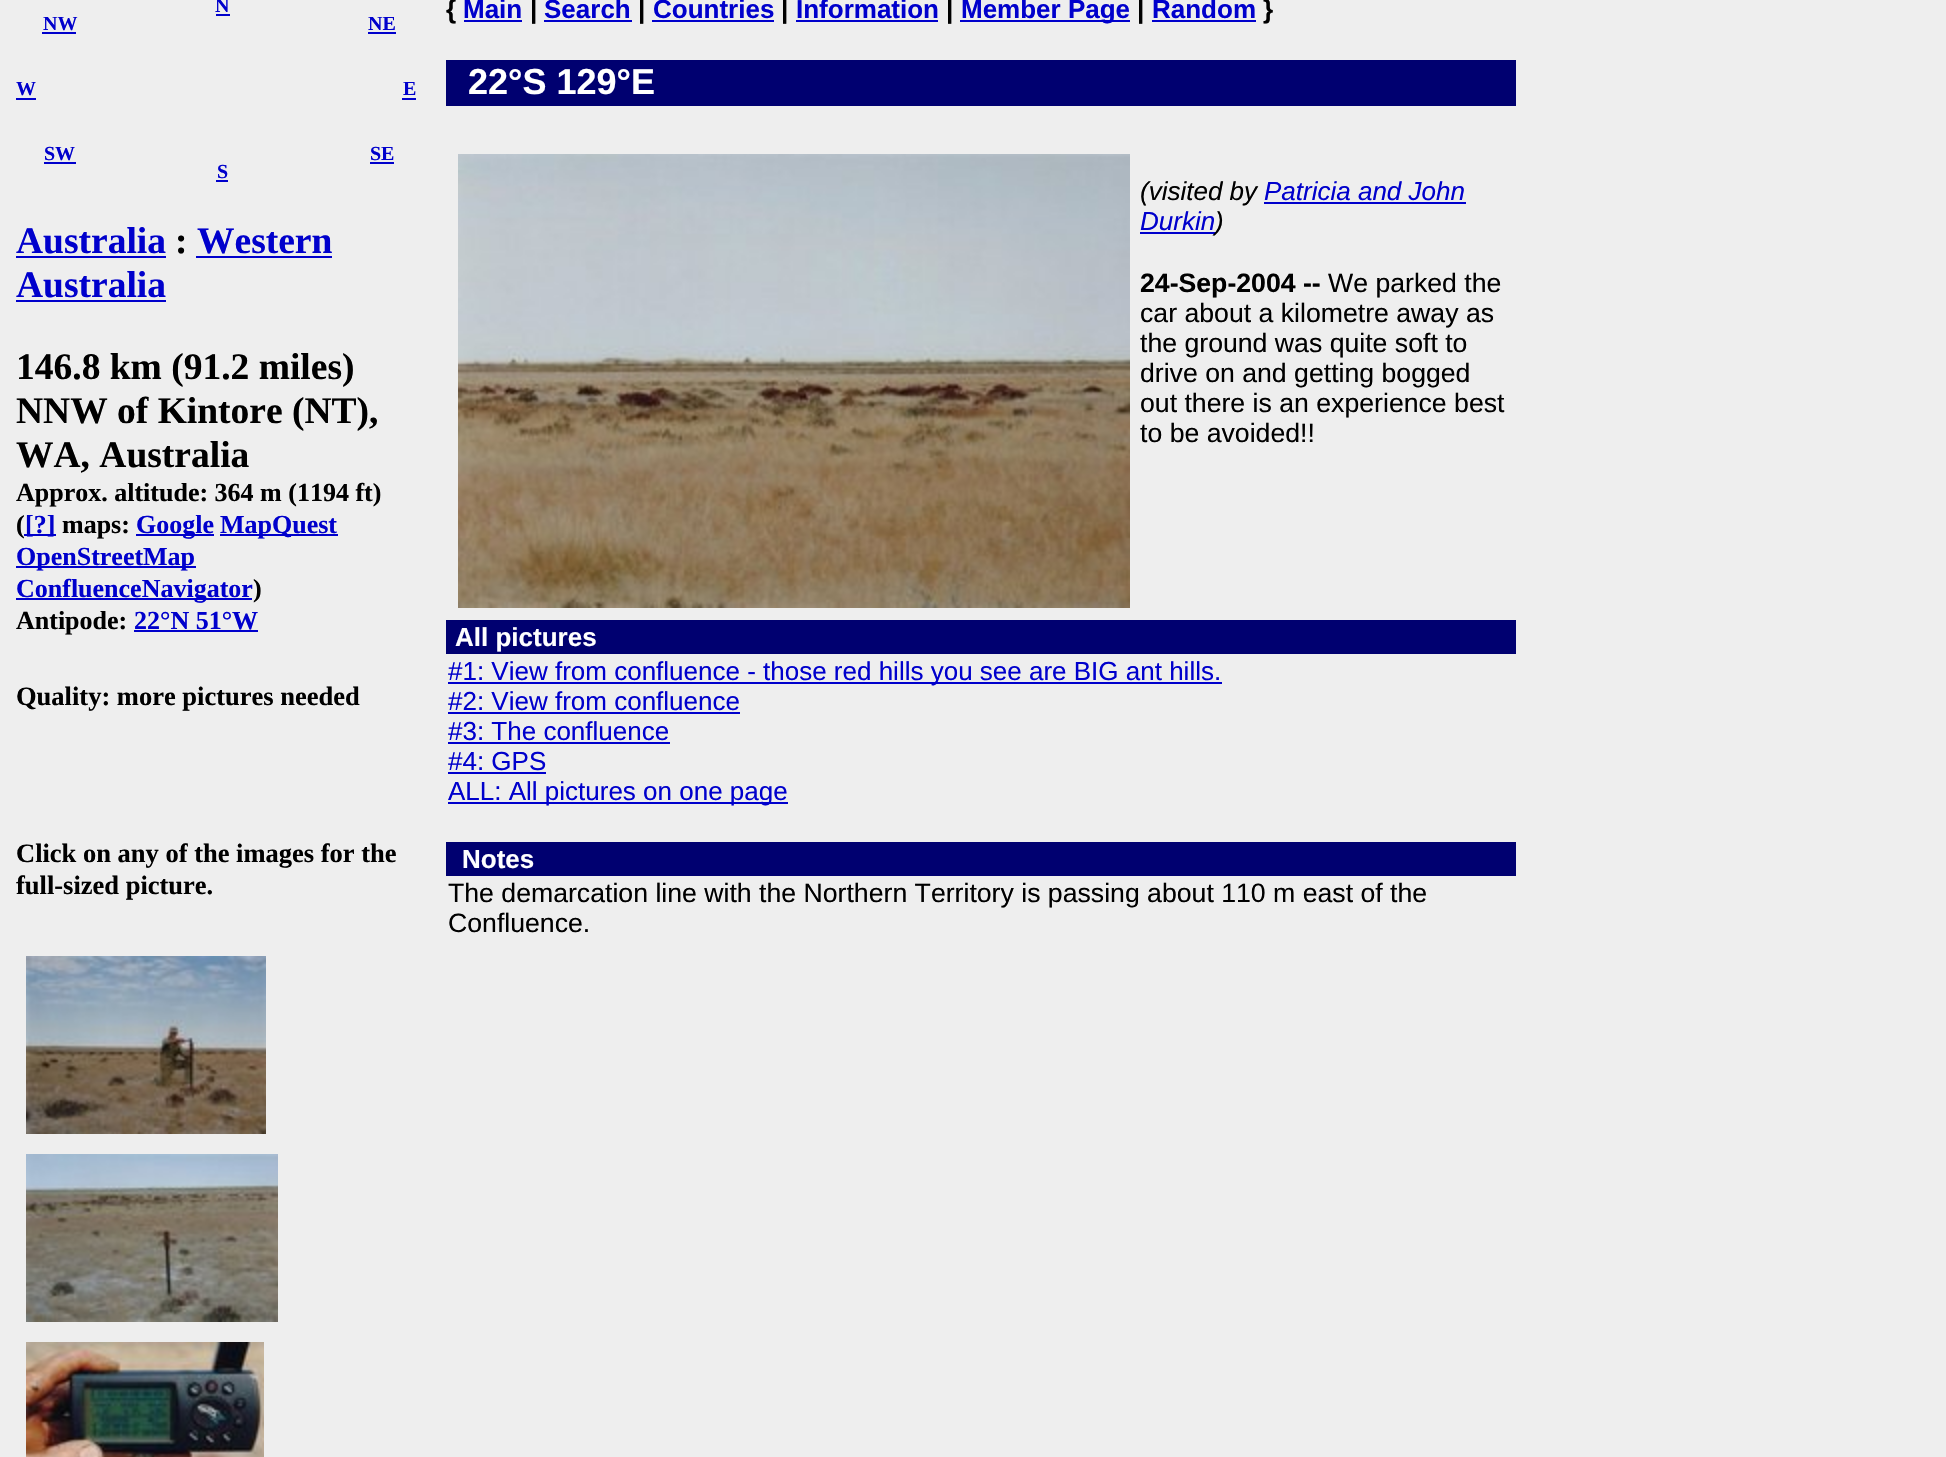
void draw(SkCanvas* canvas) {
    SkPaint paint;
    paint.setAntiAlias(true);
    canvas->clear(0xFFEEEEEE);
    SkFont font1(fontMgr->matchFamilyStyle("Liberation Serif", SkFontStyle::Bold()), 20);
    font1.setSubpixel(true);
    paint.setColor(0xFF0000CC);
    canvas->drawString("W", 16, 95, font1, paint);
    canvas->drawRect(SkRect::MakeXYWH(16, 98, 20, 2), paint);
    canvas->drawString("N", 215, 12, font1, paint);
    canvas->drawRect(SkRect::MakeXYWH(216, 14, 14, 2), paint);
    canvas->drawString("NW", 43, 30, font1, paint);
    canvas->drawRect(SkRect::MakeXYWH(42, 32, 34, 2), paint);
    canvas->drawString("NE", 368, 30, font1, paint);
    canvas->drawRect(SkRect::MakeXYWH(368, 32, 28, 2), paint);
    canvas->drawString("SW", 44, 160, font1, paint);
    canvas->drawRect(SkRect::MakeXYWH(44, 162, 32, 2), paint);
    canvas->drawString("SE", 370, 160, font1, paint);
    canvas->drawRect(SkRect::MakeXYWH(370, 162, 24, 2), paint);
    canvas->drawString("S", 217, 178, font1, paint);
    canvas->drawRect(SkRect::MakeXYWH(216, 180, 12, 2), paint);
    canvas->drawString("E", 403, 95, font1, paint);
    canvas->drawRect(SkRect::MakeXYWH(402, 98, 14, 2), paint);
    SkFont font2(fontMgr->matchFamilyStyle("Liberation Serif", SkFontStyle::Bold()), 37.5f);
    font2.setSubpixel(true);
    canvas->drawString("Australia", 16, 253, font2, paint);
    canvas->drawRect(SkRect::MakeXYWH(16, 256, 150, 2), paint);
    paint.setColor(0xFF000000);
    canvas->drawString(":", 175, 253, font2, paint);
    paint.setColor(0xFF0000CC);
    canvas->drawString("Western", 197, 253, font2, paint);
    canvas->drawRect(SkRect::MakeXYWH(196, 256, 136, 2), paint);
    canvas->drawString("Australia", 16, 297, font2, paint);
    canvas->drawRect(SkRect::MakeXYWH(16, 300, 150, 2), paint);
    paint.setColor(0xFF000000);
    canvas->drawString("146.8 km (91.2 miles)", 16, 379, font2, paint);
    canvas->drawString("NNW of Kintore (NT),", 16, 423, font2, paint);
    canvas->drawString("WA, Australia", 16, 467, font2, paint);
    SkFont font3(fontMgr->matchFamilyStyle("Liberation Serif", SkFontStyle::Bold()), 26);
    font3.setSubpixel(true);
    canvas->drawString("Approx. altitude: 364 m (1194 ft)", 16, 501, font3, paint);
    canvas->drawString("(", 16, 533, font3, paint);
    paint.setColor(0xFF0000CC);
    canvas->drawRect(SkRect::MakeXYWH(24, 534, 32, 2), paint);
    canvas->drawString("[?]", 25, 533, font3, paint);
    paint.setColor(0xFF000000);
    canvas->drawString("maps:", 62, 533, font3, paint);
    paint.setColor(0xFF0000CC);
    canvas->drawRect(SkRect::MakeXYWH(136, 534, 78, 2), paint);
    canvas->drawString("Google", 136, 533, font3, paint);
    canvas->drawRect(SkRect::MakeXYWH(220, 534, 118, 2), paint);
    canvas->drawString("MapQuest", 220, 533, font3, paint);
    canvas->drawRect(SkRect::MakeXYWH(16, 566, 180, 2), paint);
    canvas->drawString("OpenStreetMap", 16, 565, font3, paint);
    canvas->drawRect(SkRect::MakeXYWH(16, 598, 236, 2), paint);
    canvas->drawString("ConfluenceNavigator", 16, 597, font3, paint);
    paint.setColor(0xFF000000);
    canvas->drawString(")", 253, 597, font3, paint);
    canvas->drawString("Antipode:", 16, 629, font3, paint);
    paint.setColor(0xFF0000CC);
    canvas->drawString("22°N 51°W", 134, 629, font3, paint);
    canvas->drawRect(SkRect::MakeXYWH(134, 630, 124, 2), paint);
    SkFont font4(fontMgr->matchFamilyStyle("Liberation Serif", SkFontStyle::Bold()), 26.5f);
    font4.setSubpixel(true);
    paint.setColor(0xFF000000);
    canvas->drawString("Quality: more pictures needed", 16, 705, font4, paint);
    canvas->drawString("Click on any of the images for the", 16, 862, font4, paint);
    canvas->drawString("full-sized picture.", 16, 894, font4, paint);
    canvas->drawImageRect(SkImages::DeferredFromEncodedData(SkData::MakeFromFileName("img1.png")), SkRect::MakeXYWH(26, 956, 240, 178), SkSamplingOptions());
    canvas->drawImageRect(SkImages::DeferredFromEncodedData(SkData::MakeFromFileName("img2.png")), SkRect::MakeXYWH(26, 1154, 252, 168), SkSamplingOptions());
    canvas->drawImageRect(SkImages::DeferredFromEncodedData(SkData::MakeFromFileName("img3.png")), SkRect::MakeXYWH(26, 1342, 238, 115), SkSamplingOptions());
    SkFont font5(fontMgr->matchFamilyStyle("Liberation Sans", SkFontStyle::Bold()), 26);
    font5.setSubpixel(true);
    canvas->drawString("{", 446, 18, font5, paint);
    paint.setColor(0xFF0000CC);
    canvas->drawString("Main", 463, 18, font5, paint);
    canvas->drawRect(SkRect::MakeXYWH(464, 20, 58, 2), paint);
    paint.setColor(0xFF000000);
    canvas->drawString("|", 530, 18, font5, paint);
    paint.setColor(0xFF0000CC);
    canvas->drawString("Search", 544, 18, font5, paint);
    canvas->drawRect(SkRect::MakeXYWH(544, 20, 88, 2), paint);
    paint.setColor(0xFF000000);
    canvas->drawString("|", 638, 18, font5, paint);
    paint.setColor(0xFF0000CC);
    canvas->drawString("Countries", 653, 18, font5, paint);
    canvas->drawRect(SkRect::MakeXYWH(652, 20, 122, 2), paint);
    paint.setColor(0xFF000000);
    canvas->drawString("|", 781, 18, font5, paint);
    paint.setColor(0xFF0000CC);
    canvas->drawString("Information", 796, 18, font5, paint);
    canvas->drawRect(SkRect::MakeXYWH(796, 20, 142, 2), paint);
    paint.setColor(0xFF000000);
    canvas->drawString("|", 946, 18, font5, paint);
    paint.setColor(0xFF0000CC);
    canvas->drawRect(SkRect::MakeXYWH(960, 20, 170, 2), paint);
    canvas->drawString("Member Page", 961, 18, font5, paint);
    paint.setColor(0xFF000000);
    canvas->drawString("|", 1137, 18, font5, paint);
    paint.setColor(0xFF0000CC);
    canvas->drawString("Random", 1152, 18, font5, paint);
    canvas->drawRect(SkRect::MakeXYWH(1152, 20, 104, 2), paint);
    paint.setColor(0xFF000000);
    canvas->drawString("}", 1263, 18, font5, paint);
    paint.setColor(0xFF000070);
    canvas->drawRect(SkRect::MakeXYWH(446, 60, 1070, 46), paint);
    SkFont font6(fontMgr->matchFamilyStyle("Liberation Sans", SkFontStyle::Bold()), 36);
    font6.setSubpixel(true);
    paint.setColor(0xFFFFFFFF);
    canvas->drawString("22°S 129°E", 468, 94, font6, paint);
    canvas->drawImageRect(SkImages::DeferredFromEncodedData(SkData::MakeFromFileName("img4.png")), SkRect::MakeXYWH(458, 154, 672, 454), SkSamplingOptions());
    SkFont font7(fontMgr->matchFamilyStyle("Liberation Sans", SkFontStyle::Italic()), 26);
    font7.setSubpixel(true);
    paint.setColor(0xFF000000);
    canvas->drawString("(visited by", 1140, 200, font7, paint);
    paint.setColor(0xFF0000CC);
    canvas->drawRect(SkRect::MakeXYWH(1264, 202, 202, 2), paint);
    canvas->drawString("Patricia and John", 1264, 200, font7, paint);
    canvas->drawString("Durkin", 1140, 230, font7, paint);
    canvas->drawRect(SkRect::MakeXYWH(1140, 232, 76, 2), paint);
    paint.setColor(0xFF000000);
    canvas->drawString(")", 1215, 230, font7, paint);
    SkFont font8(fontMgr->matchFamilyStyle("Liberation Sans", SkFontStyle::Bold()), 26.65f);
    font8.setSubpixel(true);
    canvas->drawString("24-Sep-2004 --", 1140, 292, font8, paint);
    SkFont font9(fontMgr->matchFamilyStyle("Liberation Sans", SkFontStyle::Normal()), 26.65f);
    font9.setSubpixel(true);
    canvas->drawString("We parked the", 1328, 292, font9, paint);
    canvas->drawString("car about a kilometre away as", 1140, 322, font9, paint);
    canvas->drawString("the ground was quite soft to", 1140, 352, font9, paint);
    canvas->drawString("drive on and getting bogged", 1140, 382, font9, paint);
    canvas->drawString("out there is an experience best", 1140, 412, font9, paint);
    canvas->drawString("to be avoided!!", 1140, 442, font9, paint);
    paint.setColor(0xFF000070);
    canvas->drawRect(SkRect::MakeXYWH(446, 620, 1070, 34), paint);
    paint.setColor(0xFFFFFFFF);
    canvas->drawString("All pictures", 455, 646, font5, paint);
    paint.setColor(0xFF0000CC);
    canvas->drawRect(SkRect::MakeXYWH(448, 682, 774, 2), paint);
    SkFont font10(fontMgr->matchFamilyStyle("Liberation Sans", SkFontStyle::Normal()), 26);
    font10.setSubpixel(true);
    canvas->drawString("#1: View from confluence - those red hills you see are BIG ant hills.", 448, 680, font10, paint);
    canvas->drawString("#2: View from confluence", 448, 710, font10, paint);
    canvas->drawRect(SkRect::MakeXYWH(448, 712, 292, 2), paint);
    canvas->drawString("#3: The confluence", 448, 740, font10, paint);
    canvas->drawRect(SkRect::MakeXYWH(448, 742, 222, 2), paint);
    canvas->drawString("#4: GPS", 448, 770, font10, paint);
    canvas->drawRect(SkRect::MakeXYWH(448, 772, 98, 2), paint);
    canvas->drawRect(SkRect::MakeXYWH(448, 802, 340, 2), paint);
    canvas->drawString("ALL: All pictures on one page", 448, 800, font10, paint);
    paint.setColor(0xFF000070);
    canvas->drawRect(SkRect::MakeXYWH(446, 842, 1070, 34), paint);
    paint.setColor(0xFFFFFFFF);
    canvas->drawString("Notes", 462, 868, font5, paint);
    paint.setColor(0xFF000000);
    canvas->drawString("The demarcation line with the Northern Territory is passing about 110 m east of the", 448, 902, font9, paint);
    canvas->drawString("Confluence.", 448, 932, font9, paint);
}
